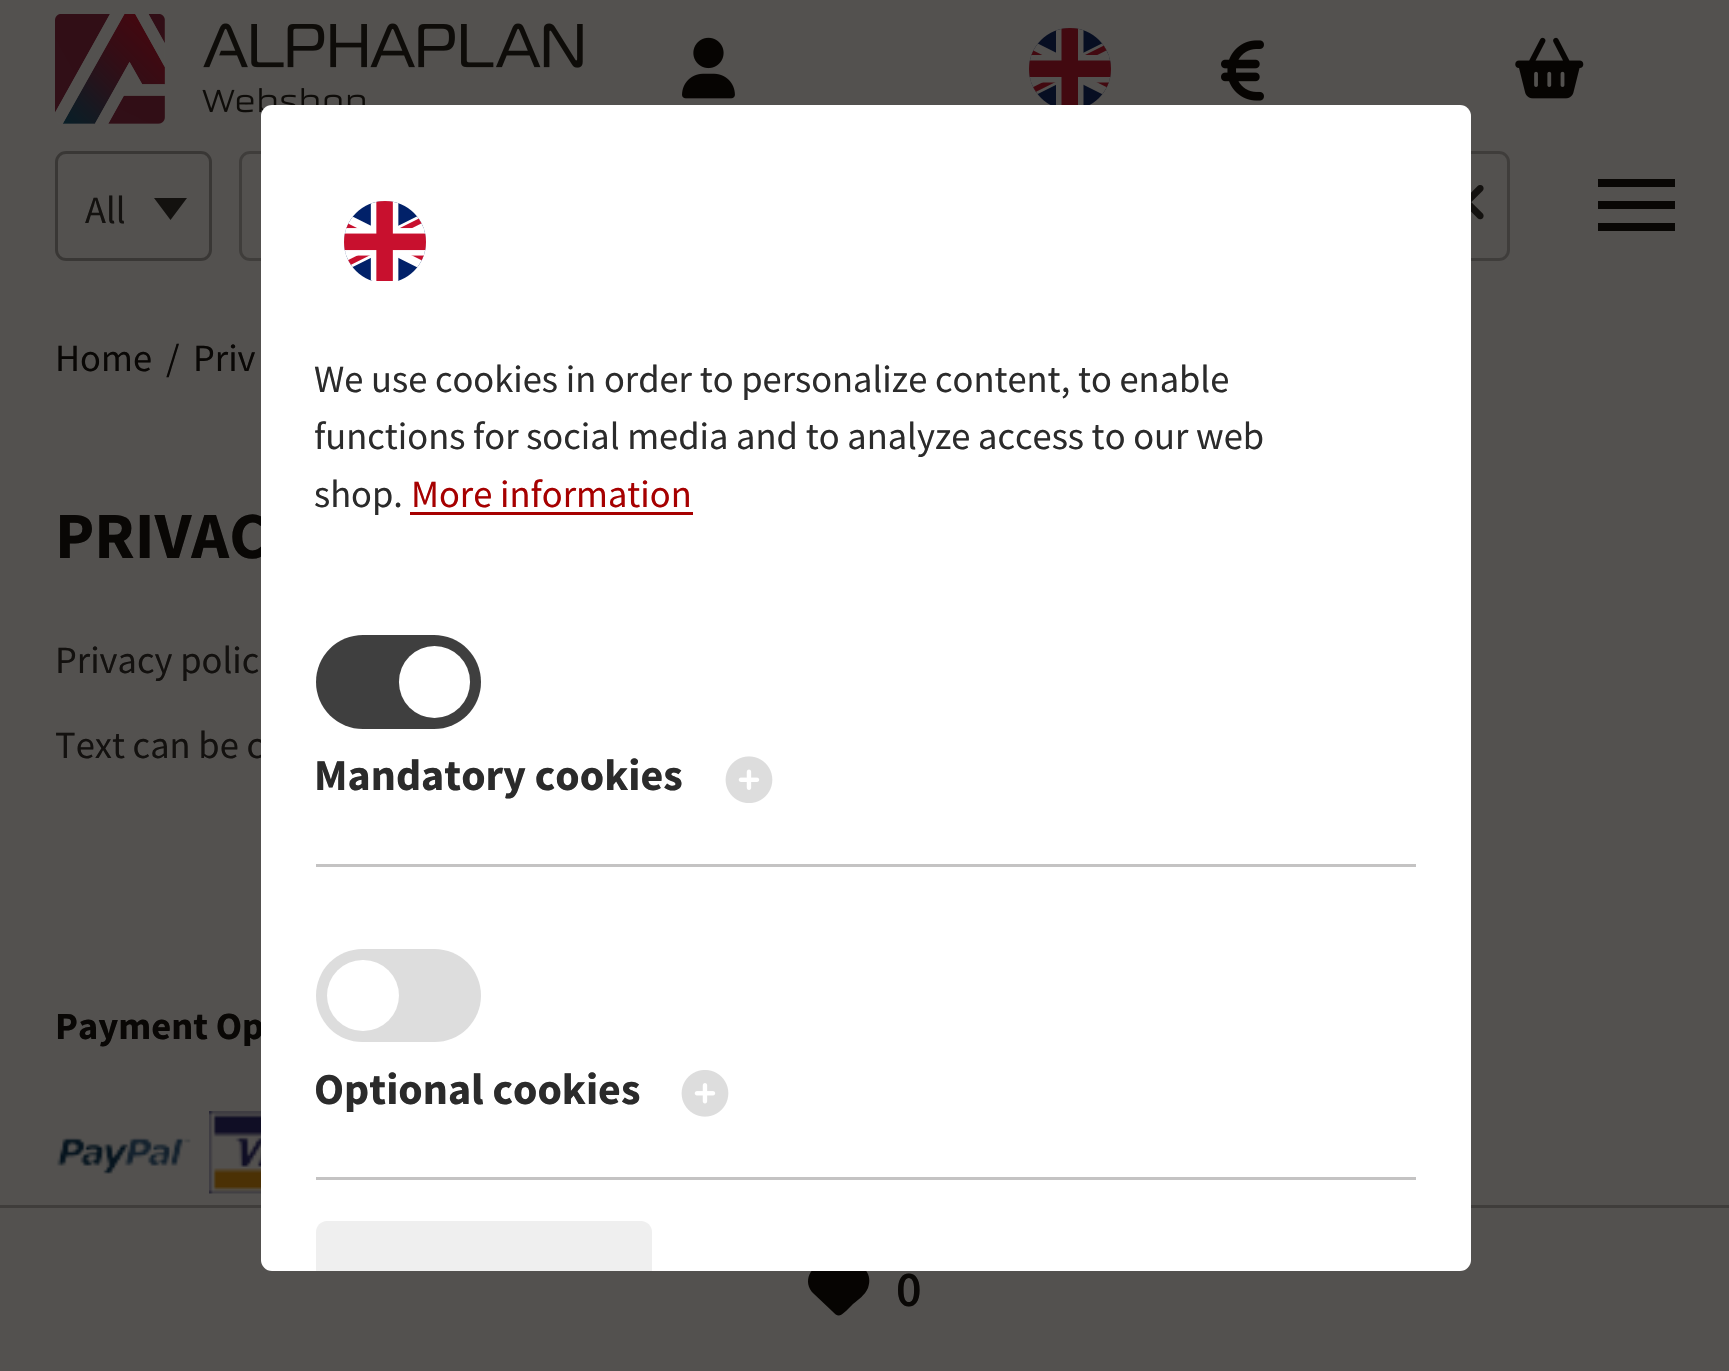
void draw(SkCanvas* canvas) {
    SkPaint paint;
    paint.setAntiAlias(true);
    canvas->clear(0xFF53514F);
    canvas->drawImageRect(SkImages::DeferredFromEncodedData(SkData::MakeFromFileName("img1.png")), SkRect::MakeXYWH(55, 14, 528, 110), SkSamplingOptions());
    canvas->drawImageRect(SkImages::DeferredFromEncodedData(SkData::MakeFromFileName("img2.png")), SkRect::MakeXYWH(682, 37, 53, 62), SkSamplingOptions());
    canvas->drawImageRect(SkImages::DeferredFromEncodedData(SkData::MakeFromFileName("img3.png")), SkRect::MakeXYWH(1029, 28, 82, 77), SkSamplingOptions());
    canvas->drawImageRect(SkImages::DeferredFromEncodedData(SkData::MakeFromFileName("img4.png")), SkRect::MakeXYWH(1221, 40, 43, 61), SkSamplingOptions());
    canvas->drawImageRect(SkImages::DeferredFromEncodedData(SkData::MakeFromFileName("img5.png")), SkRect::MakeXYWH(1515, 37, 69, 62), SkSamplingOptions());
    paint.setStyle(SkPaint::kStroke_Style);
    paint.setStrokeWidth(3);
    paint.setColor(0xFF393735);
    canvas->drawRoundRect(SkRect::MakeXYWH(56.5f, 152.5f, 154, 107), 9.5f, 9.5f, paint);
    SkFont font1(fontMgr->matchFamilyStyle("Source Sans Pro", SkFontStyle::Normal()), 38.5f);
    font1.setSubpixel(true);
    paint.setStyle(SkPaint::kFill_Style);
    paint.setColor(0xFF13110F);
    canvas->drawString("All", 85, 223, font1, paint);
    canvas->drawPath(SkPathBuilder().moveTo(154, 198).lineTo(187, 198).lineTo(170.5f, 220).close().detach(), paint);
    paint.setStyle(SkPaint::kStroke_Style);
    paint.setColor(0xFF3F3D3B);
    canvas->drawRoundRect(SkRect::MakeXYWH(240.5f, 152.5f, 1268, 107), 9.5f, 9.5f, paint);
    canvas->drawImageRect(SkImages::DeferredFromEncodedData(SkData::MakeFromFileName("img6.png")), SkRect::MakeXYWH(1471, 185, 13, 35), SkSamplingOptions());
    paint.setStyle(SkPaint::kFill_Style);
    paint.setColor(0xFF090705);
    canvas->drawRect(SkRect::MakeXYWH(1598, 179, 77, 8), paint);
    canvas->drawRect(SkRect::MakeXYWH(1598, 201, 77, 8), paint);
    canvas->drawRect(SkRect::MakeXYWH(1598, 223, 77, 8), paint);
    paint.setColor(0xFF3F3D3B);
    canvas->drawRect(SkRect::MakeXYWH(0, 1205, 1729, 3), paint);
    paint.setColor(0xFF060402);
    canvas->drawPath(SkPathBuilder().moveTo(814, 1294).lineTo(832, 1311).cubicTo(838, 1317, 839, 1317, 846, 1311).lineTo(853, 1304).cubicTo(858, 1300, 865, 1295, 868, 1288).cubicTo(875, 1270, 854, 1255, 839, 1270).cubicTo(820, 1252, 797, 1278, 814, 1294).close().detach(), paint);
    SkFont font2(fontMgr->matchFamilyStyle("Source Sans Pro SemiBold", SkFontStyle(600, SkFontStyle::kNormal_Width, SkFontStyle::kUpright_Slant)), 50);
    font2.setSubpixel(true);
    paint.setColor(0xFF090705);
    canvas->drawString("0", 896, 1306, font2, paint);
    canvas->drawString("Home", 55, 371, font1, paint);
    canvas->drawString("/", 166, 371, font1, paint);
    canvas->drawString("Priv", 193, 371, font1, paint);
    SkFont font3(fontMgr->matchFamilyStyle("Source Sans Pro", SkFontStyle::Bold()), 66);
    font3.setSubpixel(true);
    canvas->drawString("PRIVAC", 55, 558, font3, paint);
    paint.setColor(0xFF13110F);
    canvas->drawString("Privacy polic", 55, 673, font1, paint);
    canvas->drawString("Text can be c", 55, 758, font1, paint);
    SkFont font4(fontMgr->matchFamilyStyle("Source Sans Pro", SkFontStyle::Bold()), 38.5f);
    font4.setSubpixel(true);
    paint.setColor(0xFF090705);
    canvas->drawString("Payment Op", 55, 1039, font4, paint);
    canvas->drawImageRect(SkImages::DeferredFromEncodedData(SkData::MakeFromFileName("img7.png")), SkRect::MakeXYWH(56, 1137, 135, 37), SkSamplingOptions());
    canvas->drawImageRect(SkImages::DeferredFromEncodedData(SkData::MakeFromFileName("img8.png")), SkRect::MakeXYWH(209, 1111, 52, 83), SkSamplingOptions());
    paint.setColor(0xFFFFFFFF);
    canvas->drawRoundRect(SkRect::MakeXYWH(261, 105, 1210, 1166), 11, 11, paint);
    canvas->drawImageRect(SkImages::DeferredFromEncodedData(SkData::MakeFromFileName("img9.png")), SkRect::MakeXYWH(344, 201, 82, 80), SkSamplingOptions());
    paint.setColor(0xFF2B2B2B);
    canvas->drawString("We use cookies in order to personalize content, to enable", 314, 392, font1, paint);
    canvas->drawString("functions for social media and to analyze access to our web", 314, 449, font1, paint);
    canvas->drawString("shop.", 314, 507, font1, paint);
    paint.setColor(0xFFA60000);
    canvas->drawString("More information", 411, 507, font1, paint);
    canvas->drawRect(SkRect::MakeXYWH(410, 512, 283, 3), paint);
    paint.setColor(0xFFC4C3C3);
    canvas->drawRect(SkRect::MakeXYWH(316, 864, 1100, 3), paint);
    paint.setColor(0xFF3F3F3F);
    canvas->drawRoundRect(SkRect::MakeXYWH(316, 635, 165, 94), 47, 47, paint);
    paint.setColor(0xFFFFFFFF);
    canvas->drawRoundRect(SkRect::MakeXYWH(399, 646, 71, 72), 35.5f, 35.5f, paint);
    SkFont font5(fontMgr->matchFamilyStyle("Source Sans Pro", SkFontStyle::Bold()), 44);
    font5.setSubpixel(true);
    paint.setColor(0xFF2B2B2B);
    canvas->drawString("Mandatory cookies", 314, 790, font5, paint);
    canvas->drawImageRect(SkImages::DeferredFromEncodedData(SkData::MakeFromFileName("img10.png")), SkRect::MakeXYWH(725, 756, 48, 47), SkSamplingOptions());
    paint.setColor(0xFFC4C3C3);
    canvas->drawRect(SkRect::MakeXYWH(316, 1177, 1100, 3), paint);
    paint.setColor(0xFFDDDDDD);
    canvas->drawRoundRect(SkRect::MakeXYWH(316, 949, 165, 93), 46.5f, 46.5f, paint);
    paint.setColor(0xFFFFFFFF);
    canvas->drawRoundRect(SkRect::MakeXYWH(327, 960, 72, 71), 35.5f, 35.5f, paint);
    paint.setColor(0xFF2B2B2B);
    canvas->drawString("Optional cookies", 314, 1104, font5, paint);
    canvas->drawImageRect(SkImages::DeferredFromEncodedData(SkData::MakeFromFileName("img11.png")), SkRect::MakeXYWH(681, 1070, 48, 47), SkSamplingOptions());
    paint.setColor(0xFFEFEFEF);
    canvas->drawPath(SkPathBuilder().moveTo(327, 1221).lineTo(641, 1221).cubicTo(647, 1221, 652, 1226, 652, 1232).lineTo(652, 1271).lineTo(316, 1271).lineTo(316, 1232).cubicTo(316, 1226, 321, 1221, 327, 1221).close().detach(), paint);
}
